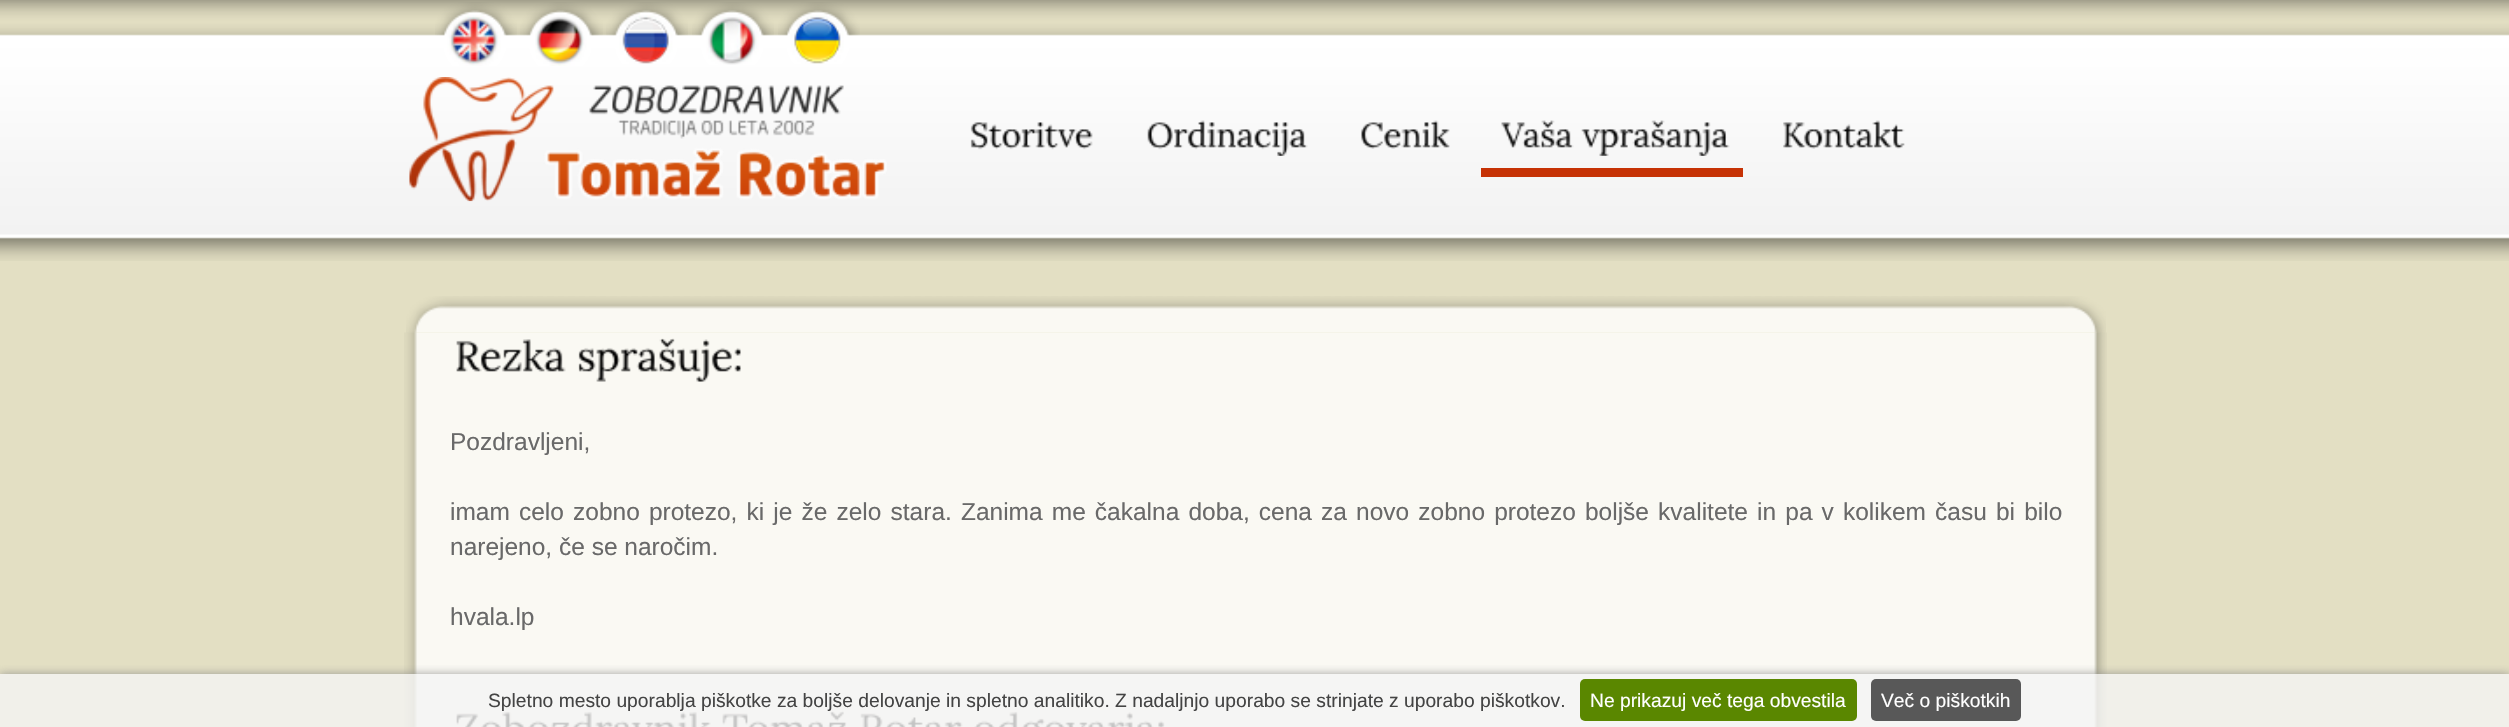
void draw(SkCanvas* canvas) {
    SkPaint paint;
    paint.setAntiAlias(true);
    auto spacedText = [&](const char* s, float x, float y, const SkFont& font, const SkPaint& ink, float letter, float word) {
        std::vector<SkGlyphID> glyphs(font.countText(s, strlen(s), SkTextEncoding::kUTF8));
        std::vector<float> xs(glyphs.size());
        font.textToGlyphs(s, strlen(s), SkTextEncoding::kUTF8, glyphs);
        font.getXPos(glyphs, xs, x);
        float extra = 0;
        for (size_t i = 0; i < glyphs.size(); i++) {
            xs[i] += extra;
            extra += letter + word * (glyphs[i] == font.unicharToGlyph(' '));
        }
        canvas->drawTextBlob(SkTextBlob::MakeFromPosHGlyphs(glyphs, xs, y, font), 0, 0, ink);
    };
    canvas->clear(0xFFE3DFC3);
    canvas->drawImageRect(SkImages::DeferredFromEncodedData(SkData::MakeFromFileName("img1.png")), SkRect::MakeXYWH(0, 0, 2509, 261), SkSamplingOptions());
    canvas->drawImageRect(SkImages::DeferredFromEncodedData(SkData::MakeFromFileName("img2.png")), SkRect::MakeXYWH(435, 2, 82, 64), SkSamplingOptions());
    canvas->drawImageRect(SkImages::DeferredFromEncodedData(SkData::MakeFromFileName("img3.png")), SkRect::MakeXYWH(520, 2, 83, 64), SkSamplingOptions());
    canvas->drawImageRect(SkImages::DeferredFromEncodedData(SkData::MakeFromFileName("img4.png")), SkRect::MakeXYWH(606, 2, 82, 62), SkSamplingOptions());
    canvas->drawImageRect(SkImages::DeferredFromEncodedData(SkData::MakeFromFileName("img5.png")), SkRect::MakeXYWH(692, 2, 82, 63), SkSamplingOptions());
    canvas->drawImageRect(SkImages::DeferredFromEncodedData(SkData::MakeFromFileName("img6.png")), SkRect::MakeXYWH(778, 2, 82, 62), SkSamplingOptions());
    canvas->drawImageRect(SkImages::DeferredFromEncodedData(SkData::MakeFromFileName("img7.png")), SkRect::MakeXYWH(409, 77, 478, 125), SkSamplingOptions());
    canvas->drawImageRect(SkImages::DeferredFromEncodedData(SkData::MakeFromFileName("img8.png")), SkRect::MakeXYWH(970, 122, 123, 28), SkSamplingOptions());
    canvas->drawImageRect(SkImages::DeferredFromEncodedData(SkData::MakeFromFileName("img9.png")), SkRect::MakeXYWH(1147, 120, 161, 36), SkSamplingOptions());
    canvas->drawImageRect(SkImages::DeferredFromEncodedData(SkData::MakeFromFileName("img10.png")), SkRect::MakeXYWH(1361, 120, 89, 29), SkSamplingOptions());
    canvas->drawImageRect(SkImages::DeferredFromEncodedData(SkData::MakeFromFileName("img11.png")), SkRect::MakeXYWH(1501, 120, 73, 28), SkSamplingOptions());
    canvas->drawImageRect(SkImages::DeferredFromEncodedData(SkData::MakeFromFileName("img12.png")), SkRect::MakeXYWH(1581, 120, 149, 36), SkSamplingOptions());
    canvas->drawImageRect(SkImages::DeferredFromEncodedData(SkData::MakeFromFileName("img13.png")), SkRect::MakeXYWH(1783, 120, 122, 29), SkSamplingOptions());
    paint.setColor(0xFFC63205);
    canvas->drawRect(SkRect::MakeXYWH(1481, 168, 262, 9), paint);
    canvas->drawImageRect(SkImages::DeferredFromEncodedData(SkData::MakeFromFileName("img15.png")), SkRect::MakeXYWH(404, 332, 1703, 395), SkSamplingOptions());
    canvas->drawImageRect(SkImages::DeferredFromEncodedData(SkData::MakeFromFileName("img14.png")), SkRect::MakeXYWH(406, 296, 1700, 37), SkSamplingOptions());
    canvas->drawImageRect(SkImages::DeferredFromEncodedData(SkData::MakeFromFileName("img16.png")), SkRect::MakeXYWH(456, 339, 110, 33), SkSamplingOptions());
    canvas->drawImageRect(SkImages::DeferredFromEncodedData(SkData::MakeFromFileName("img17.png")), SkRect::MakeXYWH(578, 338, 163, 44), SkSamplingOptions());
    SkFont font1(fontMgr->matchFamilyStyle("Liberation Sans", SkFontStyle::Normal()), 24.5f);
    font1.setSubpixel(true);
    paint.setColor(0xFF696969);
    canvas->drawString("Pozdravljeni,", 450, 450, font1, paint);
    spacedText("imam celo zobno protezo, ki je že zelo stara. Zanima me čakalna doba, cena za novo zobno protezo boljše kvalitete in pa v kolikem času bi bilo", 450, 520, font1, paint, 0, 2.3f);
    canvas->drawString("narejeno, če se naročim.", 450, 555, font1, paint);
    canvas->drawString("hvala.lp", 450, 625, font1, paint);
    canvas->drawImageRect(SkImages::DeferredFromEncodedData(SkData::MakeFromFileName("img18.png")), SkRect::MakeXYWH(456, 711, 255, 16), SkSamplingOptions());
    canvas->drawImageRect(SkImages::DeferredFromEncodedData(SkData::MakeFromFileName("img19.png")), SkRect::MakeXYWH(722, 710, 125, 17), SkSamplingOptions());
    canvas->drawImageRect(SkImages::DeferredFromEncodedData(SkData::MakeFromFileName("img20.png")), SkRect::MakeXYWH(860, 713, 103, 14), SkSamplingOptions());
    canvas->drawImageRect(SkImages::DeferredFromEncodedData(SkData::MakeFromFileName("img21.png")), SkRect::MakeXYWH(974, 711, 191, 16), SkSamplingOptions());
    canvas->save();
    canvas->clipRect(SkRect::MakeXYWH(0, 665, 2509, 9));
    paint.setColor(0xCC888888);
    paint.setMaskFilter(SkMaskFilter::MakeBlur(kNormal_SkBlurStyle, 4.5f));
    canvas->drawRect(SkRect::MakeXYWH(0, 674, 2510, 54), paint);
    paint.setMaskFilter(nullptr);
    canvas->restore();
    paint.setColor(0xCCF4F4F4);
    canvas->drawRect(SkRect::MakeXYWH(0, 674, 2509, 53), paint);
    SkFont font2(fontMgr->matchFamilyStyle("Liberation Sans", SkFontStyle::Normal()), 19.25f);
    font2.setSubpixel(true);
    paint.setColor(0xFF444444);
    canvas->drawString("Spletno mesto uporablja piškotke za boljše delovanje in spletno analitiko. Z nadaljnjo uporabo se strinjate z uporabo piškotkov.", 488, 707, font2, paint);
    paint.setColor(0xFF5A8700);
    canvas->drawRoundRect(SkRect::MakeXYWH(1580, 679, 277, 42), 5, 5, paint);
    paint.setColor(0xFFFFFFFF);
    canvas->drawString("Ne prikazuj več tega obvestila", 1590, 707, font2, paint);
    paint.setColor(0xFF585858);
    canvas->drawRoundRect(SkRect::MakeXYWH(1871, 679, 150, 42), 5, 5, paint);
    paint.setColor(0xFFFFFFFF);
    canvas->drawString("Več o piškotkih", 1881, 707, font2, paint);
}
